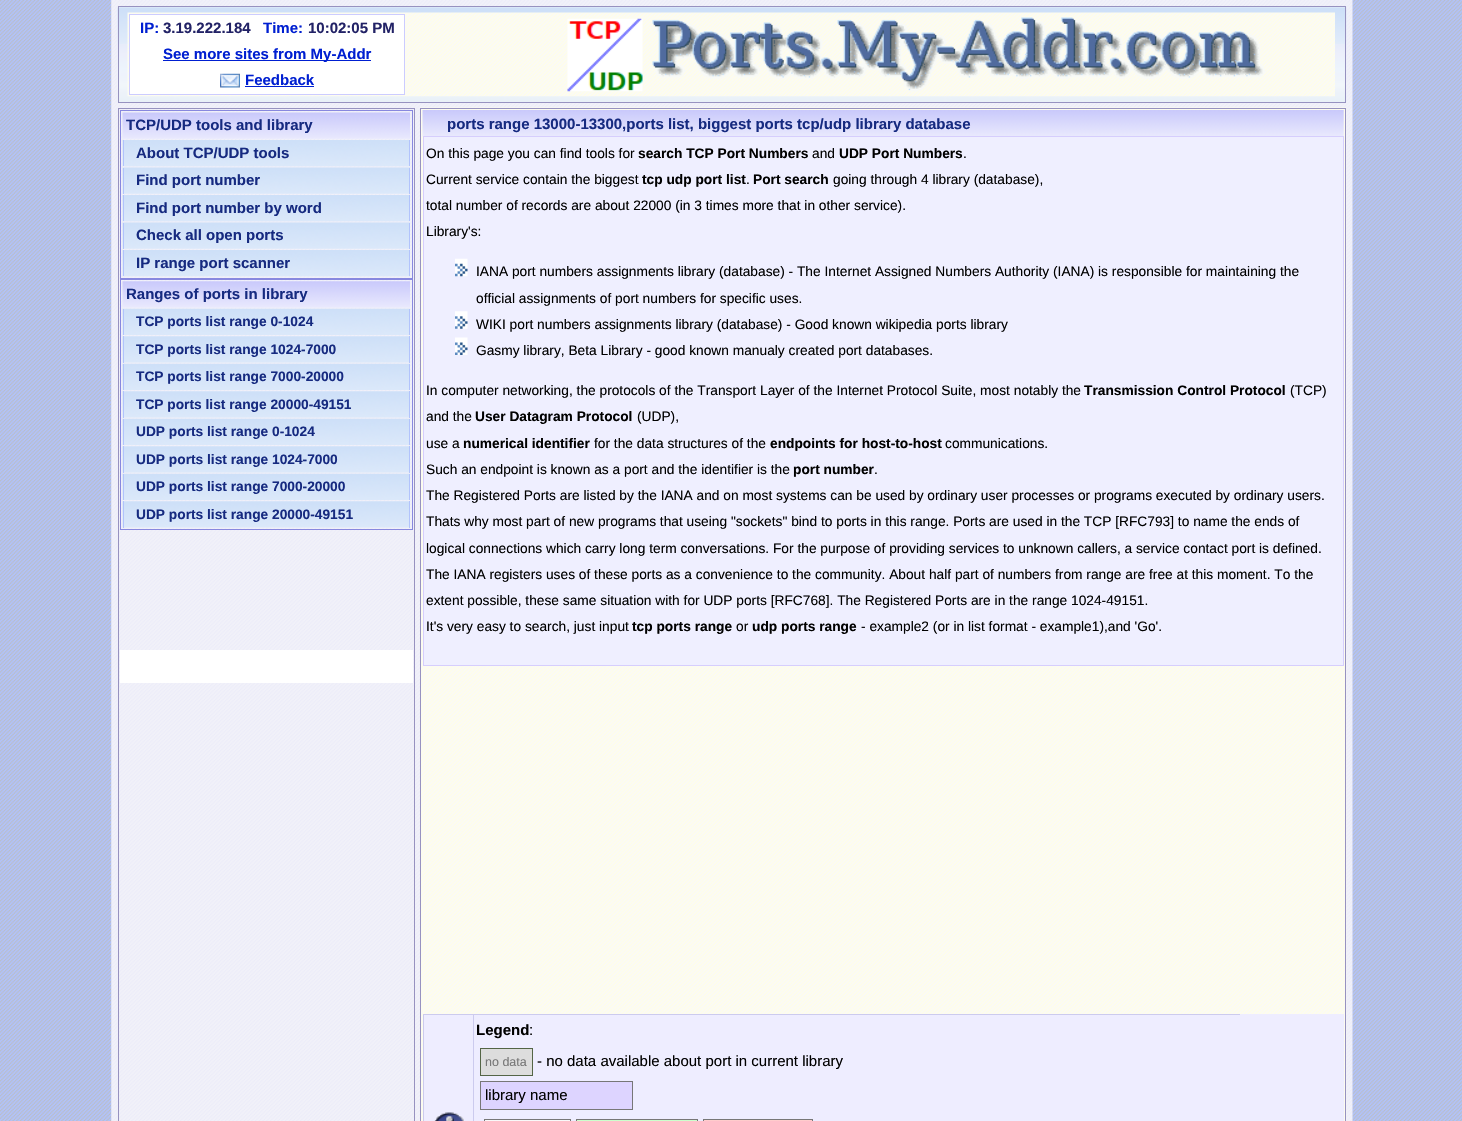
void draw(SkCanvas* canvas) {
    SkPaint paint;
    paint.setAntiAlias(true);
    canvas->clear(0xFFFFFFFF);
    canvas->drawImageRect(SkImages::DeferredFromEncodedData(SkData::MakeFromFileName("img1.png")), SkRect::MakeXYWH(0, 0, 1462, 1121), SkSamplingOptions());
    canvas->drawImageRect(SkImages::DeferredFromEncodedData(SkData::MakeFromFileName("img2.png")), SkRect::MakeXYWH(111, 0, 1242, 1121), SkSamplingOptions());
    canvas->drawImageRect(SkImages::DeferredFromEncodedData(SkData::MakeFromFileName("img3.png")), SkRect::MakeXYWH(117, 6, 1230, 97), SkSamplingOptions());
    paint.setStyle(SkPaint::kStroke_Style);
    paint.setStrokeWidth(1);
    paint.setColor(0xFF9792C0);
    canvas->drawRect(SkRect::MakeXYWH(118.5f, 6.5f, 1227, 96), paint);
    canvas->drawImageRect(SkImages::DeferredFromEncodedData(SkData::MakeFromFileName("img4.png")), SkRect::MakeXYWH(127, 12, 1208, 85), SkSamplingOptions());
    paint.setStyle(SkPaint::kFill_Style);
    paint.setColor(0xFFFFFFFF);
    canvas->drawRect(SkRect::MakeXYWH(129.5f, 14.5f, 275, 80), paint);
    paint.setStyle(SkPaint::kStroke_Style);
    paint.setColor(0xFFCCCCFF);
    canvas->drawRect(SkRect::MakeXYWH(129.5f, 14.5f, 275, 80), paint);
    SkFont font1(fontMgr->matchFamilyStyle("Liberation Sans", SkFontStyle::Bold()), 15);
    font1.setSubpixel(true);
    paint.setStyle(SkPaint::kFill_Style);
    paint.setColor(0xFF001FD1);
    canvas->drawString("IP:", 140, 33, font1, paint);
    paint.setColor(0xFF222266);
    canvas->drawString("3.19.222.184", 163, 33, font1, paint);
    paint.setColor(0xFF001FD1);
    canvas->drawString("Time:", 263, 33, font1, paint);
    paint.setColor(0xFF222266);
    canvas->drawString("10:02:05 PM", 308, 33, font1, paint);
    paint.setColor(0xFF001FD1);
    canvas->drawRect(SkRect::MakeXYWH(163, 60, 208, 1), paint);
    canvas->drawString("See more sites from My-Addr", 163, 59, font1, paint);
    canvas->drawImageRect(SkImages::DeferredFromEncodedData(SkData::MakeFromFileName("img5.png")), SkRect::MakeXYWH(220, 73, 20, 15), SkSamplingOptions());
    canvas->drawString("Feedback", 245, 85, font1, paint);
    canvas->drawRect(SkRect::MakeXYWH(245, 86, 69, 1), paint);
    canvas->drawImageRect(SkImages::DeferredFromEncodedData(SkData::MakeFromFileName("img6.png")), SkRect::MakeXYWH(567, 18, 76, 74), SkSamplingOptions());
    canvas->drawImageRect(SkImages::DeferredFromEncodedData(SkData::MakeFromFileName("img7.png")), SkRect::MakeXYWH(652, 17, 613, 75), SkSamplingOptions());
    paint.setStyle(SkPaint::kStroke_Style);
    paint.setColor(0xFF9792C0);
    canvas->drawRect(SkRect::MakeXYWH(118.5f, 108.5f, 296, 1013), paint);
    paint.setColor(0xFF8888DF);
    canvas->drawRect(SkRect::MakeXYWH(120.5f, 110.5f, 292, 168), paint);
    canvas->drawImageRect(SkImages::DeferredFromEncodedData(SkData::MakeFromFileName("img8.png")), SkRect::MakeXYWH(122, 112, 288, 27), SkSamplingOptions());
    paint.setStyle(SkPaint::kFill_Style);
    paint.setColor(0xFF162A80);
    canvas->drawString("TCP/UDP tools and library", 126, 130, font1, paint);
    canvas->drawImageRect(SkImages::DeferredFromEncodedData(SkData::MakeFromFileName("img9.png")), SkRect::MakeXYWH(122, 140, 288, 27), SkSamplingOptions());
    paint.setColor(0xFFB1C3FC);
    canvas->drawRect(SkRect::MakeXYWH(409, 140, 1, 26), paint);
    canvas->drawRect(SkRect::MakeXYWH(123, 140, 1, 26), paint);
    paint.setColor(0xFF162A80);
    canvas->drawString("About TCP/UDP tools", 136, 158, font1, paint);
    canvas->drawImageRect(SkImages::DeferredFromEncodedData(SkData::MakeFromFileName("img10.png")), SkRect::MakeXYWH(122, 167, 288, 27), SkSamplingOptions());
    paint.setColor(0xFFB1C3FC);
    canvas->drawRect(SkRect::MakeXYWH(409, 168, 1, 26), paint);
    canvas->drawRect(SkRect::MakeXYWH(123, 168, 1, 26), paint);
    paint.setColor(0xFF162A80);
    canvas->drawString("Find port number", 136, 185, font1, paint);
    canvas->drawImageRect(SkImages::DeferredFromEncodedData(SkData::MakeFromFileName("img11.png")), SkRect::MakeXYWH(122, 195, 288, 27), SkSamplingOptions());
    paint.setColor(0xFFB1C3FC);
    canvas->drawRect(SkRect::MakeXYWH(409, 195, 1, 26), paint);
    canvas->drawRect(SkRect::MakeXYWH(123, 195, 1, 26), paint);
    paint.setColor(0xFF162A80);
    canvas->drawString("Find port number by word", 136, 213, font1, paint);
    canvas->drawImageRect(SkImages::DeferredFromEncodedData(SkData::MakeFromFileName("img12.png")), SkRect::MakeXYWH(122, 222, 288, 27), SkSamplingOptions());
    paint.setColor(0xFFB1C3FC);
    canvas->drawRect(SkRect::MakeXYWH(409, 223, 1, 26), paint);
    canvas->drawRect(SkRect::MakeXYWH(123, 223, 1, 26), paint);
    paint.setColor(0xFF162A80);
    canvas->drawString("Check all open ports", 136, 240, font1, paint);
    canvas->drawImageRect(SkImages::DeferredFromEncodedData(SkData::MakeFromFileName("img13.png")), SkRect::MakeXYWH(122, 250, 288, 27), SkSamplingOptions());
    paint.setColor(0xFFB1C3FC);
    canvas->drawRect(SkRect::MakeXYWH(409, 250, 1, 26), paint);
    canvas->drawRect(SkRect::MakeXYWH(123, 250, 1, 26), paint);
    paint.setColor(0xFF162A80);
    canvas->drawString("IP range port scanner", 136, 268, font1, paint);
    paint.setStyle(SkPaint::kStroke_Style);
    paint.setColor(0xFF8888DF);
    canvas->drawRect(SkRect::MakeXYWH(120.5f, 279.5f, 292, 250), paint);
    canvas->drawImageRect(SkImages::DeferredFromEncodedData(SkData::MakeFromFileName("img14.png")), SkRect::MakeXYWH(122, 281, 288, 27), SkSamplingOptions());
    paint.setStyle(SkPaint::kFill_Style);
    paint.setColor(0xFF162A80);
    canvas->drawString("Ranges of ports in library", 126, 299, font1, paint);
    canvas->drawImageRect(SkImages::DeferredFromEncodedData(SkData::MakeFromFileName("img15.png")), SkRect::MakeXYWH(122, 308, 288, 27), SkSamplingOptions());
    paint.setColor(0xFFB1C3FC);
    canvas->drawRect(SkRect::MakeXYWH(409, 309, 1, 26), paint);
    canvas->drawRect(SkRect::MakeXYWH(123, 309, 1, 26), paint);
    SkFont font2(fontMgr->matchFamilyStyle("Liberation Sans", SkFontStyle::Bold()), 13.75f);
    font2.setSubpixel(true);
    paint.setColor(0xFF162A80);
    canvas->drawString("TCP ports list range 0-1024", 136, 326, font2, paint);
    canvas->drawImageRect(SkImages::DeferredFromEncodedData(SkData::MakeFromFileName("img16.png")), SkRect::MakeXYWH(122, 336, 287, 27), SkSamplingOptions());
    paint.setColor(0xFFB1C3FC);
    canvas->drawRect(SkRect::MakeXYWH(409, 336, 1, 27), paint);
    canvas->drawRect(SkRect::MakeXYWH(123, 336, 1, 27), paint);
    paint.setColor(0xFF162A80);
    canvas->drawString("TCP ports list range 1024-7000", 136, 354, font2, paint);
    canvas->drawImageRect(SkImages::DeferredFromEncodedData(SkData::MakeFromFileName("img17.png")), SkRect::MakeXYWH(122, 363, 288, 27), SkSamplingOptions());
    paint.setColor(0xFFB1C3FC);
    canvas->drawRect(SkRect::MakeXYWH(409, 364, 1, 26), paint);
    canvas->drawRect(SkRect::MakeXYWH(123, 364, 1, 26), paint);
    paint.setColor(0xFF162A80);
    canvas->drawString("TCP ports list range 7000-20000", 136, 381, font2, paint);
    canvas->drawImageRect(SkImages::DeferredFromEncodedData(SkData::MakeFromFileName("img18.png")), SkRect::MakeXYWH(122, 391, 287, 27), SkSamplingOptions());
    paint.setColor(0xFFB1C3FC);
    canvas->drawRect(SkRect::MakeXYWH(409, 391, 1, 27), paint);
    canvas->drawRect(SkRect::MakeXYWH(123, 391, 1, 27), paint);
    paint.setColor(0xFF162A80);
    canvas->drawString("TCP ports list range 20000-49151", 136, 409, font2, paint);
    canvas->drawImageRect(SkImages::DeferredFromEncodedData(SkData::MakeFromFileName("img19.png")), SkRect::MakeXYWH(122, 418, 288, 27), SkSamplingOptions());
    paint.setColor(0xFFB1C3FC);
    canvas->drawRect(SkRect::MakeXYWH(409, 419, 1, 26), paint);
    canvas->drawRect(SkRect::MakeXYWH(123, 419, 1, 26), paint);
    paint.setColor(0xFF162A80);
    canvas->drawString("UDP ports list range 0-1024", 136, 436, font2, paint);
    canvas->drawImageRect(SkImages::DeferredFromEncodedData(SkData::MakeFromFileName("img20.png")), SkRect::MakeXYWH(122, 446, 287, 27), SkSamplingOptions());
    paint.setColor(0xFFB1C3FC);
    canvas->drawRect(SkRect::MakeXYWH(409, 446, 1, 27), paint);
    canvas->drawRect(SkRect::MakeXYWH(123, 446, 1, 27), paint);
    paint.setColor(0xFF162A80);
    canvas->drawString("UDP ports list range 1024-7000", 136, 464, font2, paint);
    canvas->drawImageRect(SkImages::DeferredFromEncodedData(SkData::MakeFromFileName("img15.png")), SkRect::MakeXYWH(122, 473, 288, 27), SkSamplingOptions());
    paint.setColor(0xFFB1C3FC);
    canvas->drawRect(SkRect::MakeXYWH(409, 474, 1, 26), paint);
    canvas->drawRect(SkRect::MakeXYWH(123, 474, 1, 26), paint);
    paint.setColor(0xFF162A80);
    canvas->drawString("UDP ports list range 7000-20000", 136, 491, font2, paint);
    canvas->drawImageRect(SkImages::DeferredFromEncodedData(SkData::MakeFromFileName("img21.png")), SkRect::MakeXYWH(122, 501, 287, 27), SkSamplingOptions());
    paint.setColor(0xFFB1C3FC);
    canvas->drawRect(SkRect::MakeXYWH(409, 501, 1, 27), paint);
    canvas->drawRect(SkRect::MakeXYWH(123, 501, 1, 27), paint);
    paint.setColor(0xFF162A80);
    canvas->drawString("UDP ports list range 20000-49151", 136, 519, font2, paint);
    paint.setColor(0xFFFFFFFF);
    canvas->drawRect(SkRect::MakeXYWH(120, 650, 293, 33), paint);
    canvas->drawImageRect(SkImages::DeferredFromEncodedData(SkData::MakeFromFileName("img22.png")), SkRect::MakeXYWH(420, 107, 927, 1014), SkSamplingOptions());
    paint.setStyle(SkPaint::kStroke_Style);
    paint.setColor(0xFF9792C0);
    canvas->drawRect(SkRect::MakeXYWH(420.5f, 108.5f, 925, 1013), paint);
    canvas->drawImageRect(SkImages::DeferredFromEncodedData(SkData::MakeFromFileName("img23.png")), SkRect::MakeXYWH(422, 110, 922, 27), SkSamplingOptions());
    paint.setStyle(SkPaint::kFill_Style);
    paint.setColor(0xFF162A80);
    canvas->drawString("ports range 13000-13300,ports list, biggest ports tcp/udp library database", 447, 129, font1, paint);
    paint.setColor(0xFFEFEFFF);
    canvas->drawRect(SkRect::MakeXYWH(423.5f, 136.5f, 920, 529), paint);
    paint.setStyle(SkPaint::kStroke_Style);
    paint.setColor(0xFFD6CEFD);
    canvas->drawRect(SkRect::MakeXYWH(423.5f, 136.5f, 920, 529), paint);
    SkFont font3(fontMgr->matchFamilyStyle("Liberation Sans", SkFontStyle::Normal()), 13.75f);
    font3.setSubpixel(true);
    paint.setStyle(SkPaint::kFill_Style);
    paint.setColor(0xFF000000);
    canvas->drawString("On this page you can find tools for", 426, 158, font3, paint);
    canvas->drawString("search TCP Port Numbers", 638, 158, font2, paint);
    canvas->drawString("and", 812, 158, font3, paint);
    canvas->drawString("UDP Port Numbers", 839, 158, font2, paint);
    canvas->drawString(".", 963, 158, font3, paint);
    canvas->drawString("Current service contain the biggest", 426, 184, font3, paint);
    canvas->drawString("tcp udp port list", 642, 184, font2, paint);
    canvas->drawString(".", 746, 184, font3, paint);
    canvas->drawString("Port search", 753, 184, font2, paint);
    canvas->drawString("going through 4 library (database),", 833, 184, font3, paint);
    canvas->drawString("total number of records are about 22000 (in 3 times more that in other service).", 426, 210, font3, paint);
    canvas->drawString("Library's:", 426, 236, font3, paint);
    canvas->drawImageRect(SkImages::DeferredFromEncodedData(SkData::MakeFromFileName("img24.png")), SkRect::MakeXYWH(455, 258, 13, 19), SkSamplingOptions());
    canvas->drawString("IANA port numbers assignments library (database) - The Internet Assigned Numbers Authority (IANA) is responsible for maintaining the", 476, 276, font3, paint);
    canvas->drawString("official assignments of port numbers for specific uses.", 476, 303, font3, paint);
    canvas->drawImageRect(SkImages::DeferredFromEncodedData(SkData::MakeFromFileName("img25.png")), SkRect::MakeXYWH(455, 311, 13, 18), SkSamplingOptions());
    canvas->drawString("WIKI port numbers assignments library (database) - Good known wikipedia ports library", 476, 329, font3, paint);
    canvas->drawImageRect(SkImages::DeferredFromEncodedData(SkData::MakeFromFileName("img26.png")), SkRect::MakeXYWH(455, 337, 13, 18), SkSamplingOptions());
    canvas->drawString("Gasmy library, Beta Library - good known manualy created port databases.", 476, 355, font3, paint);
    canvas->drawString("In computer networking, the protocols of the Transport Layer of the Internet Protocol Suite, most notably the", 426, 395, font3, paint);
    canvas->drawString("Transmission Control Protocol", 1084, 395, font2, paint);
    canvas->drawString("(TCP)", 1290, 395, font3, paint);
    canvas->drawString("and the", 426, 421, font3, paint);
    canvas->drawString("User Datagram Protocol", 475, 421, font2, paint);
    canvas->drawString("(UDP),", 637, 421, font3, paint);
    canvas->drawString("use a", 426, 448, font3, paint);
    canvas->drawString("numerical identifier", 463, 448, font2, paint);
    canvas->drawString("for the data structures of the", 594, 448, font3, paint);
    canvas->drawString("endpoints for host-to-host", 770, 448, font2, paint);
    canvas->drawString("communications.", 945, 448, font3, paint);
    canvas->drawString("Such an endpoint is known as a port and the identifier is the", 426, 474, font3, paint);
    canvas->drawString("port number", 793, 474, font2, paint);
    canvas->drawString(".", 874, 474, font3, paint);
    canvas->drawString("The Registered Ports are listed by the IANA and on most systems can be used by ordinary user processes or programs executed by ordinary users.", 426, 500, font3, paint);
    canvas->drawString("Thats why most part of new programs that useing \"sockets\" bind to ports in this range. Ports are used in the TCP [RFC793] to name the ends of", 426, 526, font3, paint);
    canvas->drawString("logical connections which carry long term conversations. For the purpose of providing services to unknown callers, a service contact port is defined.", 426, 553, font3, paint);
    canvas->drawString("The IANA registers uses of these ports as a convenience to the community. About half part of numbers from range are free at this moment. To the", 426, 579, font3, paint);
    canvas->drawString("extent possible, these same situation with for UDP ports [RFC768]. The Registered Ports are in the range 1024-49151.", 426, 605, font3, paint);
    canvas->drawString("It's very easy to search, just input", 426, 631, font3, paint);
    canvas->drawString("tcp ports range", 632, 631, font2, paint);
    canvas->drawString("or", 736, 631, font3, paint);
    canvas->drawString("udp ports range", 752, 631, font2, paint);
    canvas->drawString("- example2 (or in list format - example1),and 'Go'.", 861, 631, font3, paint);
    paint.setColor(0xFFEEEDFF);
    canvas->drawRect(SkRect::MakeXYWH(424, 1014, 920, 107), paint);
    paint.setColor(0xFFCCCBEE);
    canvas->drawRect(SkRect::MakeXYWH(473, 1014, 767, 1), paint);
    canvas->drawRect(SkRect::MakeXYWH(473, 1014, 1, 107), paint);
    canvas->drawRect(SkRect::MakeXYWH(423, 1014, 51, 1), paint);
    canvas->drawRect(SkRect::MakeXYWH(423, 1014, 1, 107), paint);
    canvas->drawImageRect(SkImages::DeferredFromEncodedData(SkData::MakeFromFileName("img27.png")), SkRect::MakeXYWH(434, 1112, 30, 9), SkSamplingOptions());
    paint.setColor(0xFF000000);
    canvas->drawString("Legend", 476, 1035, font1, paint);
    SkFont font4(fontMgr->matchFamilyStyle("Liberation Sans", SkFontStyle::Normal()), 15);
    font4.setSubpixel(true);
    canvas->drawString(":", 529, 1035, font4, paint);
    paint.setColor(0xFFDDDDDD);
    canvas->drawRect(SkRect::MakeXYWH(480.5f, 1048.5f, 52, 27), paint);
    paint.setStyle(SkPaint::kStroke_Style);
    paint.setColor(0xFF546546);
    canvas->drawRect(SkRect::MakeXYWH(480.5f, 1048.5f, 52, 27), paint);
    SkFont font5(fontMgr->matchFamilyStyle("Liberation Sans", SkFontStyle::Normal()), 12.5f);
    font5.setSubpixel(true);
    paint.setStyle(SkPaint::kFill_Style);
    paint.setColor(0xFF777777);
    canvas->drawString("no data", 485, 1066, font5, paint);
    paint.setColor(0xFF000000);
    canvas->drawString("- no data available about port in current library", 537, 1066, font4, paint);
    paint.setColor(0xFFDDD4FF);
    canvas->drawRect(SkRect::MakeXYWH(480.5f, 1081.5f, 152, 28), paint);
    paint.setStyle(SkPaint::kStroke_Style);
    paint.setColor(0xFF777777);
    canvas->drawRect(SkRect::MakeXYWH(480.5f, 1081.5f, 152, 28), paint);
    paint.setStyle(SkPaint::kFill_Style);
    paint.setColor(0xFF000000);
    canvas->drawString("library name", 485, 1100, font4, paint);
    paint.setColor(0xFFF9F9F9);
    canvas->drawRect(SkRect::MakeXYWH(484.5f, 1119.5f, 86, 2), paint);
    paint.setStyle(SkPaint::kStroke_Style);
    paint.setColor(0xFF777777);
    canvas->drawRect(SkRect::MakeXYWH(484.5f, 1119.5f, 86, 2), paint);
    paint.setStyle(SkPaint::kFill_Style);
    paint.setColor(0xFFCCFFCC);
    canvas->drawRect(SkRect::MakeXYWH(576.5f, 1119.5f, 121, 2), paint);
    paint.setStyle(SkPaint::kStroke_Style);
    paint.setColor(0xFF777777);
    canvas->drawRect(SkRect::MakeXYWH(576.5f, 1119.5f, 121, 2), paint);
    paint.setStyle(SkPaint::kFill_Style);
    paint.setColor(0xFFFFCCCC);
    canvas->drawRect(SkRect::MakeXYWH(703.5f, 1119.5f, 109, 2), paint);
    paint.setStyle(SkPaint::kStroke_Style);
    paint.setColor(0xFF777777);
    canvas->drawRect(SkRect::MakeXYWH(703.5f, 1119.5f, 109, 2), paint);
}
